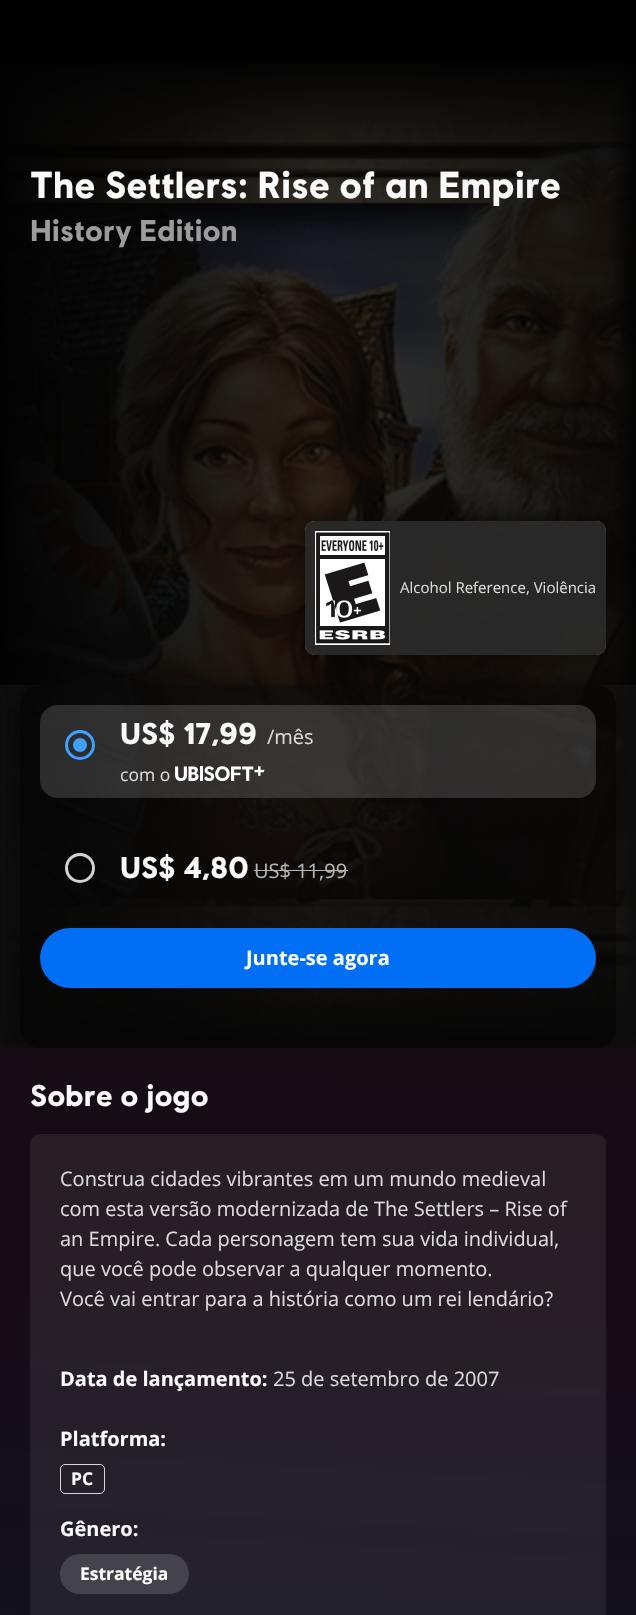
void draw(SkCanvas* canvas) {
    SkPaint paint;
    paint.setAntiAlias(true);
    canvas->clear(0xFFFFFFFF);
    {
        const SkColor colors[] = {0xFF0D0D0D, 0xFF170C16, 0xFF0C1622};
        const float stops[] = {0.03f, 0.6f, 0.95f};
        const SkPoint ends[] = {{375, -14}, {262, 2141}};
        paint.setShader(SkGradientShader::MakeLinear(ends, colors, stops, 3, SkTileMode::kClamp));
        paint.setAlpha(255);
    }
    canvas->drawRect(SkRect::MakeXYWH(0, 1048, 636, 567), paint);
    paint.setShader(nullptr);
    paint.setColor(0xFF000000);
    canvas->drawRect(SkRect::MakeXYWH(0, 0, 636, 63), paint);
    canvas->drawImageRect(SkImages::DeferredFromEncodedData(SkData::MakeFromFileName("img1.png")), SkRect::MakeXYWH(2, 63, 634, 984), SkSamplingOptions());
    {
        const SkColor colors[] = {0xFF0D0D0D, 0x800D0D0D, 0x000D0D0D, 0x800D0D0D, 0xFF0D0D0D};
        const float stops[] = {0, 0.28f, 0.5f, 0.96f, 1};
        const SkPoint ends[] = {{0, 554}, {636, 554}};
        paint.setShader(SkGradientShader::MakeLinear(ends, colors, stops, 5, SkTileMode::kClamp));
        paint.setAlpha(255);
    }
    canvas->drawRect(SkRect::MakeXYWH(0, 63, 636, 984), paint);
    {
        const SkColor colors[] = {0xFF0D0D0D, 0x800D0D0D, 0x140D0D0D, 0x000D0D0D, 0x140D0D0D, 0x800D0D0D, 0xFF0D0D0D};
        const float stops[] = {0, 0.07f, 0.13f, 0.5f, 0.89f, 0.94f, 1};
        const SkPoint ends[] = {{318, 60}, {318, 1048}};
        paint.setShader(SkGradientShader::MakeLinear(ends, colors, stops, 7, SkTileMode::kClamp));
        paint.setAlpha(255);
    }
    canvas->drawRect(SkRect::MakeXYWH(0, 63, 636, 985), paint);
    paint.setShader(nullptr);
    paint.setColor(0xCC0D0D0D);
    canvas->drawRect(SkRect::MakeXYWH(5, 685, 630, 361), paint);
    canvas->save();
    canvas->clipRect(SkRect::MakeXYWH(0, 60, 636, 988));
    canvas->clipPath(SkPathBuilder(SkPathFillType::kEvenOdd).moveTo(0, 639).lineTo(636, 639).lineTo(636, 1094).lineTo(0, 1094).close().moveTo(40, 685).lineTo(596, 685).cubicTo(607, 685, 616, 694, 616, 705).lineTo(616, 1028).cubicTo(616, 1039, 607, 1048, 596, 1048).lineTo(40, 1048).cubicTo(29, 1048, 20, 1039, 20, 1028).lineTo(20, 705).cubicTo(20, 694, 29, 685, 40, 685).close().detach(), true);
    paint.setColor(0x99000000);
    paint.setMaskFilter(SkMaskFilter::MakeBlur(kNormal_SkBlurStyle, 15));
    canvas->drawRoundRect(SkRect::MakeXYWH(20, 685, 596, 363), 20, 20, paint);
    paint.setMaskFilter(nullptr);
    canvas->restore();
    paint.setColor(0xCC000000);
    canvas->drawRect(SkRect::MakeXYWH(0, 63, 636, 622), paint);
    SkFont font1(fontMgr->matchFamilyStyle("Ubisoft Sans", SkFontStyle::Bold()), 37.5f);
    font1.setSubpixel(true);
    paint.setColor(0xFFF9F9F9);
    canvas->drawString("The Settlers: Rise of an Empire", 30, 198, font1, paint);
    SkFont font2(fontMgr->matchFamilyStyle("Ubisoft Sans", SkFontStyle::Bold()), 30);
    font2.setSubpixel(true);
    paint.setColor(0xFF9C9C9D);
    canvas->drawString("History Edition", 30, 241, font2, paint);
    paint.setColor(0x99000000);
    canvas->drawRoundRect(SkRect::MakeXYWH(20, 685, 596, 363), 20, 20, paint);
    canvas->save();
    canvas->clipPath(SkPathBuilder(SkPathFillType::kEvenOdd).moveTo(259, 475).lineTo(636, 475).lineTo(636, 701).lineTo(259, 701).close().moveTo(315, 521).lineTo(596, 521).cubicTo(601.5f, 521, 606, 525.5f, 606, 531).lineTo(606, 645).cubicTo(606, 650.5f, 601.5f, 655, 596, 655).lineTo(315, 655).cubicTo(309.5f, 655, 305, 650.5f, 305, 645).lineTo(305, 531).cubicTo(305, 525.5f, 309.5f, 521, 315, 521).close().detach(), true);
    paint.setMaskFilter(SkMaskFilter::MakeBlur(kNormal_SkBlurStyle, 15));
    canvas->drawRoundRect(SkRect::MakeXYWH(305, 521, 301, 134), 10, 10, paint);
    paint.setMaskFilter(nullptr);
    canvas->restore();
    paint.setColor(0x99FFFFFF);
    canvas->drawRoundRect(SkRect::MakeXYWH(305, 521, 301, 134), 10, 10, paint);
    paint.setColor(0xD10D0D0D);
    canvas->drawRoundRect(SkRect::MakeXYWH(305, 521, 301, 134), 10, 10, paint);
    canvas->drawImageRect(SkImages::DeferredFromEncodedData(SkData::MakeFromFileName("img2.png")), SkRect::MakeXYWH(315, 531, 75, 114), SkSamplingOptions());
    SkFont font3(fontMgr->matchFamilyStyle("Open Sans", SkFontStyle::Normal()), 15);
    font3.setSubpixel(true);
    paint.setColor(0xFFDCDBDB);
    canvas->drawString("Alcohol Reference, Violência", 400, 593, font3, paint);
    paint.setColor(0x26FFFFFF);
    canvas->drawRoundRect(SkRect::MakeXYWH(40, 705, 556, 93), 18, 18, paint);
    {
        const SkColor colors[] = {0xFF3DA2FF, 0xFF3DA2FF, 0x003DA2FF};
        const float stops[] = {0, 0.35f, 0.42f};
        paint.setShader(SkGradientShader::MakeRadial({80, 745}, 18, colors, stops, 3, SkTileMode::kClamp));
        paint.setAlpha(255);
    }
    canvas->drawRect(SkRect::MakeXYWH(72, 737, 16, 16), paint);
    paint.setStyle(SkPaint::kStroke_Style);
    paint.setStrokeWidth(3);
    paint.setShader(nullptr);
    paint.setColor(0xFF3DA2FF);
    canvas->drawCircle(80, 745, 13.5f, paint);
    paint.setStyle(SkPaint::kFill_Style);
    paint.setColor(0xFFF9F9F9);
    canvas->drawString("US$ 17,99", 120, 744, font2, paint);
    SkFont font4(fontMgr->matchFamilyStyle("Open Sans", SkFontStyle::Normal()), 20);
    font4.setSubpixel(true);
    paint.setColor(0xFFDCDBDB);
    canvas->drawString("/mês", 267, 744, font4, paint);
    SkFont font5(fontMgr->matchFamilyStyle("Open Sans", SkFontStyle::Normal()), 17.5f);
    font5.setSubpixel(true);
    canvas->drawString("com o", 120, 781, font5, paint);
    canvas->drawImageRect(SkImages::DeferredFromEncodedData(SkData::MakeFromFileName("img3.png")), SkRect::MakeXYWH(175, 766, 90, 15), SkSamplingOptions());
    paint.setStyle(SkPaint::kStroke_Style);
    paint.setColor(0xD1FFFFFF);
    canvas->drawCircle(80, 868, 13.5f, paint);
    paint.setStyle(SkPaint::kFill_Style);
    paint.setColor(0xFFF9F9F9);
    canvas->drawString("US$ 4,80", 120, 878, font2, paint);
    paint.setColor(0xFFB5B5B5);
    canvas->drawString("US$ 11,99", 254, 878, font4, paint);
    canvas->drawRect(SkRect::MakeXYWH(254, 870, 94, 1), paint);
    paint.setColor(0xFF006EF5);
    canvas->drawRoundRect(SkRect::MakeXYWH(40, 928, 556, 60), 30, 30, paint);
    SkFont font6(fontMgr->matchFamilyStyle("Open Sans", SkFontStyle::Bold()), 20);
    font6.setSubpixel(true);
    paint.setColor(0xFFFFFFFF);
    canvas->drawString("Junte-se agora", 246, 965, font6, paint);
    paint.setColor(0xFFF9F9F9);
    canvas->drawString("Sobre o jogo", 30, 1106, font2, paint);
    paint.setColor(0x12FFFFFF);
    canvas->drawRoundRect(SkRect::MakeXYWH(30, 1134, 576, 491), 10, 10, paint);
    paint.setColor(0xFFDCDBDB);
    canvas->drawString("Construa cidades vibrantes em um mundo medieval", 60, 1186, font4, paint);
    canvas->drawString("com esta versão modernizada de The Settlers – Rise of", 60, 1216, font4, paint);
    canvas->drawString("an Empire. Cada personagem tem sua vida individual,", 60, 1246, font4, paint);
    canvas->drawString("que você pode observar a qualquer momento.", 60, 1276, font4, paint);
    canvas->drawString("Você vai entrar para a história como um rei lendário?", 60, 1306, font4, paint);
    paint.setColor(0xFFF9F9F9);
    canvas->drawString("Data de lançamento:", 60, 1386, font6, paint);
    paint.setColor(0xFFDCDBDB);
    canvas->drawString("25 de setembro de 2007", 273, 1386, font4, paint);
    paint.setColor(0xFFF9F9F9);
    canvas->drawString("Platforma:", 60, 1446, font6, paint);
    paint.setStyle(SkPaint::kStroke_Style);
    paint.setStrokeWidth(1);
    paint.setColor(0xFFD9D8D9);
    canvas->drawRoundRect(SkRect::MakeXYWH(60.5f, 1464.5f, 44, 29), 4.5f, 4.5f, paint);
    SkFont font7(fontMgr->matchFamilyStyle("Open Sans", SkFontStyle::Bold()), 17.5f);
    font7.setSubpixel(true);
    paint.setStyle(SkPaint::kFill_Style);
    paint.setColor(0xFFFFFFFF);
    canvas->drawString("PC", 71, 1485, font7, paint);
    paint.setColor(0xFFF9F9F9);
    canvas->drawString("Gênero:", 60, 1536, font6, paint);
    paint.setColor(0xFF44424B);
    canvas->drawRoundRect(SkRect::MakeXYWH(60, 1554, 129, 40), 20, 20, paint);
    paint.setColor(0xFFFFFFFF);
    canvas->drawString("Estratégia", 80, 1580, font7, paint);
}
